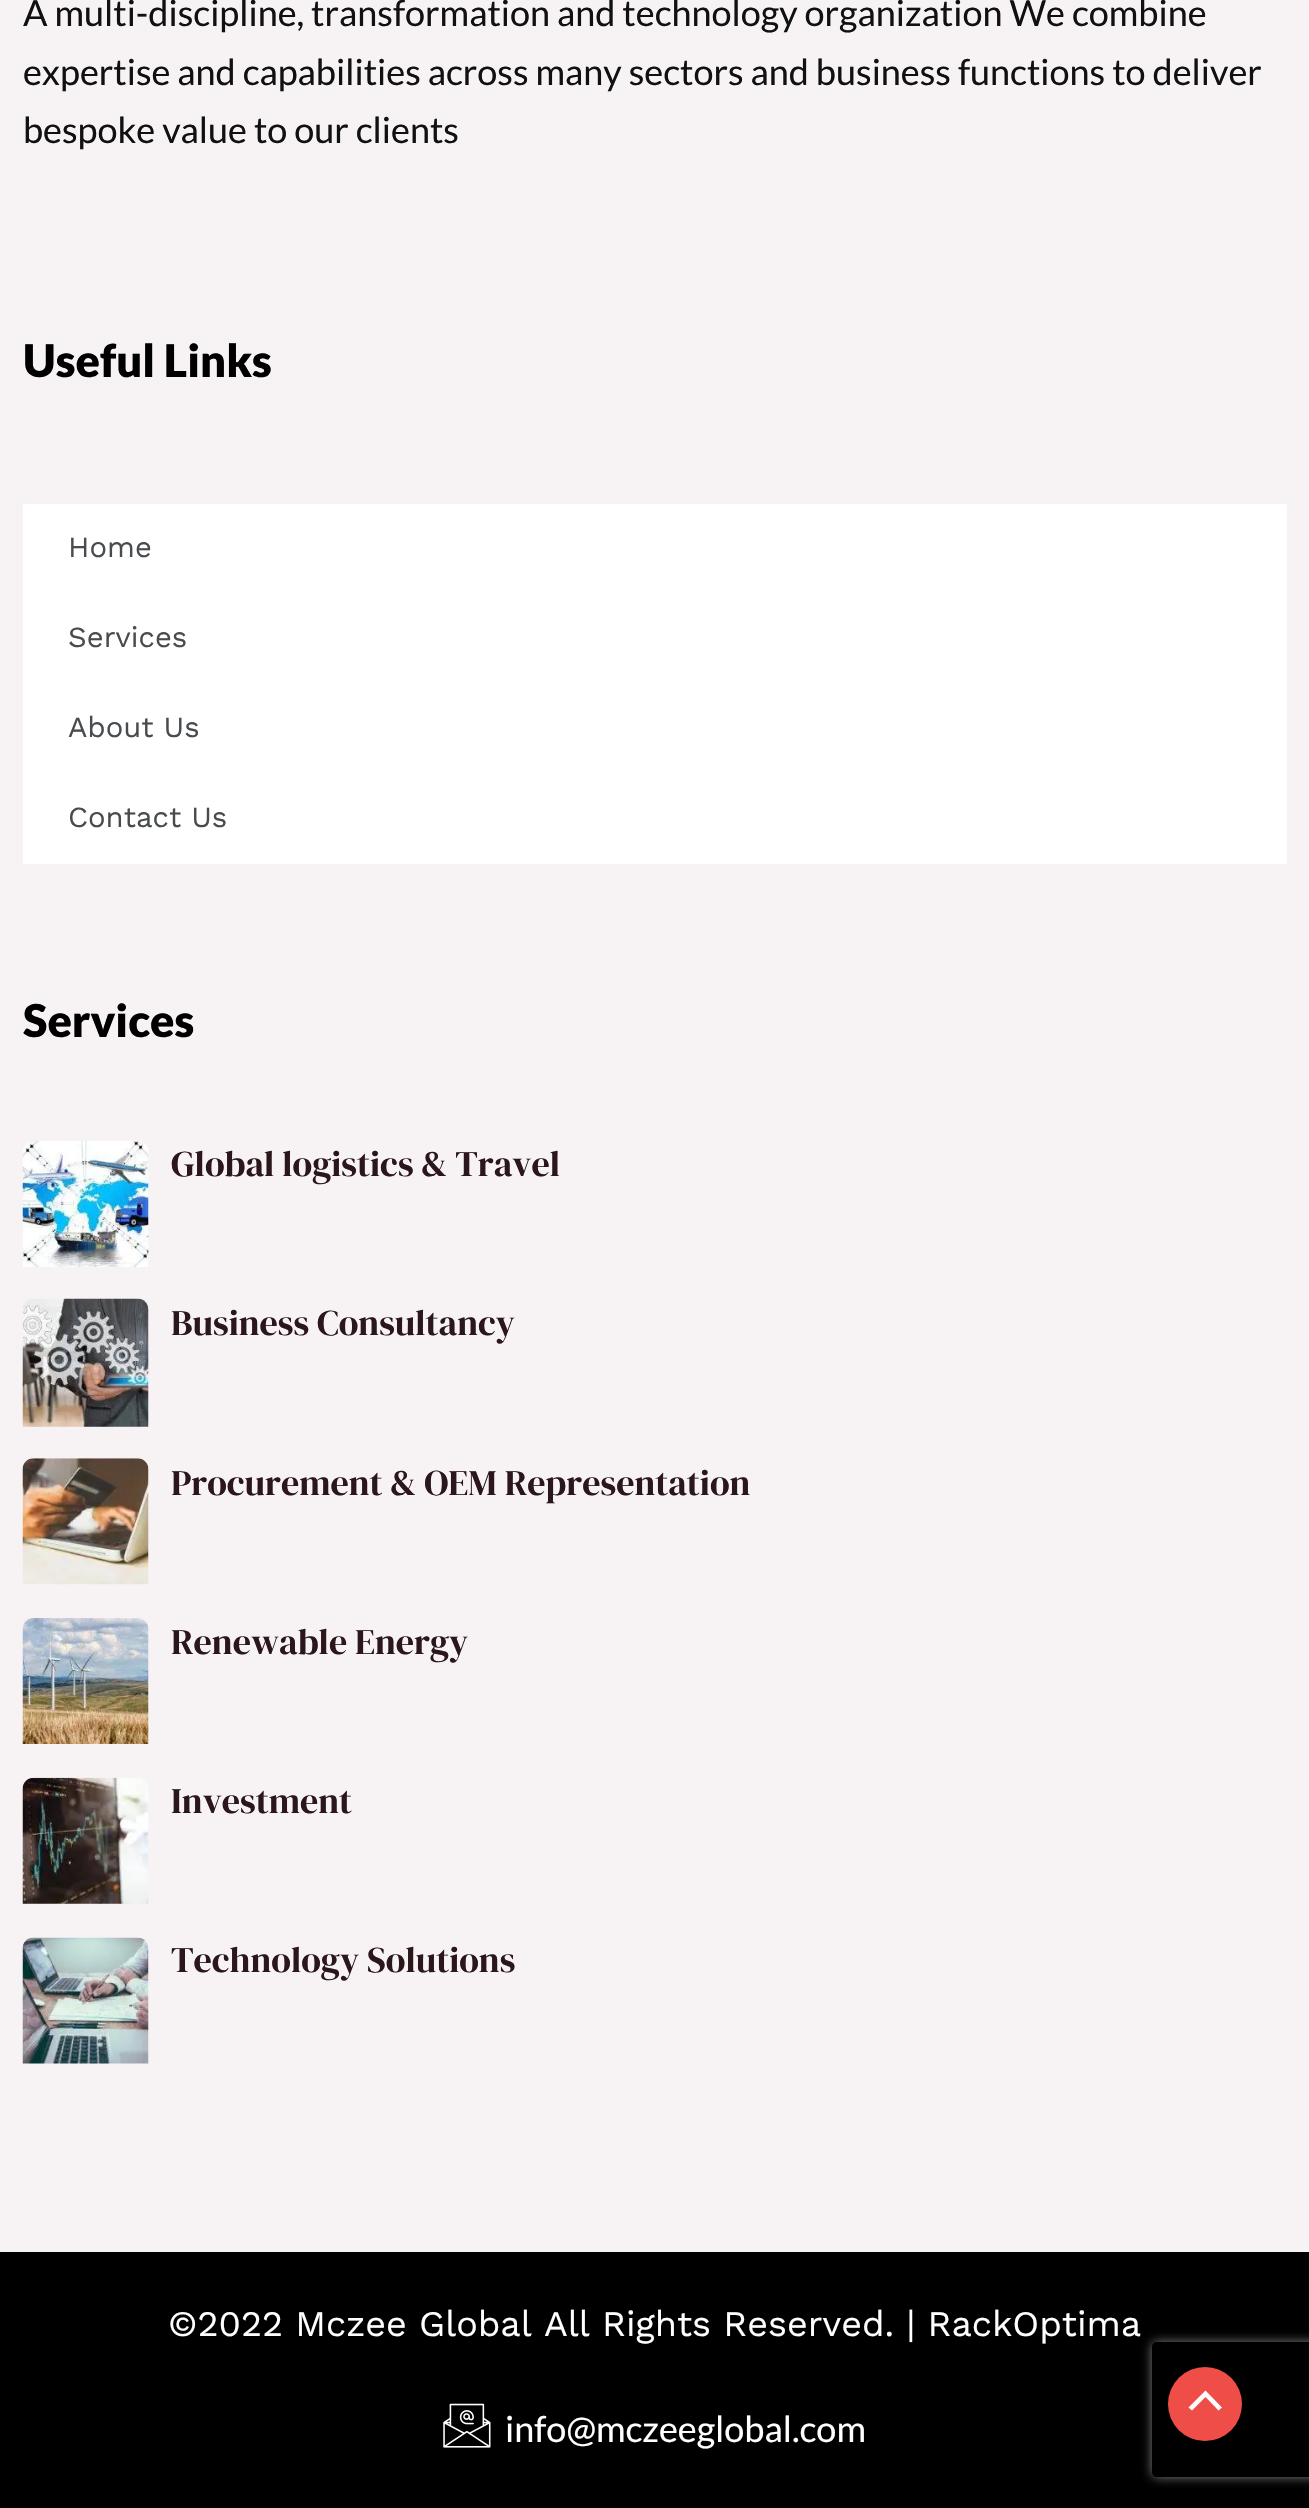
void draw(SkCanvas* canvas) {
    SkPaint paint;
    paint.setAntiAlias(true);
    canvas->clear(0xFFF7F3F5);
    SkFont font1(fontMgr->matchFamilyStyle("Lato", SkFontStyle::Normal()), 36);
    font1.setSubpixel(true);
    paint.setColor(0xFF111111);
    canvas->drawString("A multi-discipline, transformation and technology organization We combine", 23, 26, font1, paint);
    canvas->drawString("expertise and capabilities across many sectors and business functions to deliver", 23, 85, font1, paint);
    canvas->drawString("bespoke value to our clients", 23, 143, font1, paint);
    SkFont font2(fontMgr->matchFamilyStyle("Lato", SkFontStyle(900, SkFontStyle::kNormal_Width, SkFontStyle::kUpright_Slant)), 45);
    font2.setSubpixel(true);
    paint.setColor(0xFF000000);
    canvas->drawString("Useful Links", 23, 377, font2, paint);
    paint.setColor(0xFFFFFFFF);
    canvas->drawRect(SkRect::MakeXYWH(23, 504, 1264, 360), paint);
    SkFont font3(fontMgr->matchFamilyStyle("Work Sans", SkFontStyle::Normal()), 29.25f);
    font3.setSubpixel(true);
    paint.setColor(0xFF494C4F);
    canvas->drawString("Home", 68, 557, font3, paint);
    canvas->drawString("Services", 68, 647, font3, paint);
    canvas->drawString("About Us", 68, 737, font3, paint);
    canvas->drawString("Contact Us", 68, 827, font3, paint);
    paint.setColor(0xFF000000);
    canvas->drawString("Services", 23, 1037, font2, paint);
    canvas->drawImageRect(SkImages::DeferredFromEncodedData(SkData::MakeFromFileName("img1.png")), SkRect::MakeXYWH(22, 1141, 127, 126), SkSamplingOptions());
    SkFont font4(fontMgr->matchFamilyStyle("DM Serif Display", SkFontStyle::Normal()), 36);
    font4.setSubpixel(true);
    paint.setColor(0xFF2B161B);
    canvas->drawString("Global logistics & Travel", 171, 1176, font4, paint);
    canvas->drawImageRect(SkImages::DeferredFromEncodedData(SkData::MakeFromFileName("img2.png")), SkRect::MakeXYWH(22, 1298, 127, 129), SkSamplingOptions());
    canvas->drawString("Business Consultancy", 171, 1335, font4, paint);
    canvas->drawImageRect(SkImages::DeferredFromEncodedData(SkData::MakeFromFileName("img3.png")), SkRect::MakeXYWH(22, 1458, 127, 127), SkSamplingOptions());
    canvas->drawString("Procurement & OEM Representation", 171, 1495, font4, paint);
    canvas->drawImageRect(SkImages::DeferredFromEncodedData(SkData::MakeFromFileName("img4.png")), SkRect::MakeXYWH(22, 1618, 127, 126), SkSamplingOptions());
    canvas->drawString("Renewable Energy", 171, 1654, font4, paint);
    canvas->drawImageRect(SkImages::DeferredFromEncodedData(SkData::MakeFromFileName("img5.png")), SkRect::MakeXYWH(22, 1777, 127, 127), SkSamplingOptions());
    canvas->drawString("Investment", 171, 1813, font4, paint);
    canvas->drawImageRect(SkImages::DeferredFromEncodedData(SkData::MakeFromFileName("img6.png")), SkRect::MakeXYWH(22, 1937, 127, 127), SkSamplingOptions());
    canvas->drawString("Technology Solutions", 171, 1972, font4, paint);
    paint.setColor(0xFF000000);
    canvas->drawRect(SkRect::MakeXYWH(0, 2252, 1309, 256), paint);
    SkFont font5(fontMgr->matchFamilyStyle("Work Sans", SkFontStyle::Normal()), 36);
    font5.setSubpixel(true);
    paint.setColor(0xFFFFFFFF);
    canvas->drawString("©2022 Mczee Global All Rights Reserved. | RackOptima", 168, 2336, font5, paint);
    canvas->drawImageRect(SkImages::DeferredFromEncodedData(SkData::MakeFromFileName("img7.png")), SkRect::MakeXYWH(443, 2403, 48, 45), SkSamplingOptions());
    canvas->drawString("info@mczeeglobal.com", 505, 2442, font1, paint);
    canvas->save();
    canvas->clipPath(SkPathBuilder(SkPathFillType::kEvenOdd).moveTo(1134, 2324).lineTo(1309, 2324).lineTo(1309, 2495).lineTo(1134, 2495).close().moveTo(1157, 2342).lineTo(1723, 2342).cubicTo(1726, 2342, 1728, 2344, 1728, 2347).lineTo(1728, 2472).cubicTo(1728, 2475, 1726, 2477, 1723, 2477).lineTo(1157, 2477).cubicTo(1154, 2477, 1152, 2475, 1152, 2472).lineTo(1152, 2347).cubicTo(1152, 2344, 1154, 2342, 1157, 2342).close().detach(), true);
    paint.setColor(0xFF808080);
    paint.setMaskFilter(SkMaskFilter::MakeBlur(kNormal_SkBlurStyle, 5.5f));
    canvas->drawRoundRect(SkRect::MakeXYWH(1152, 2342, 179, 135), 5, 5, paint);
    paint.setMaskFilter(nullptr);
    canvas->restore();
    paint.setColor(0xFFEF4D48);
    canvas->drawCircle(1205, 2404, 37, paint);
    paint.setColor(0xFFFFFFFF);
    canvas->drawPath(SkPathBuilder().moveTo(1222, 2407.5f).lineTo(1205.5f, 2390.5f).lineTo(1188.5f, 2407.5f).lineTo(1192, 2410.5f).lineTo(1205.5f, 2397).lineTo(1218.5f, 2410.5f).close().detach(), paint);
}
